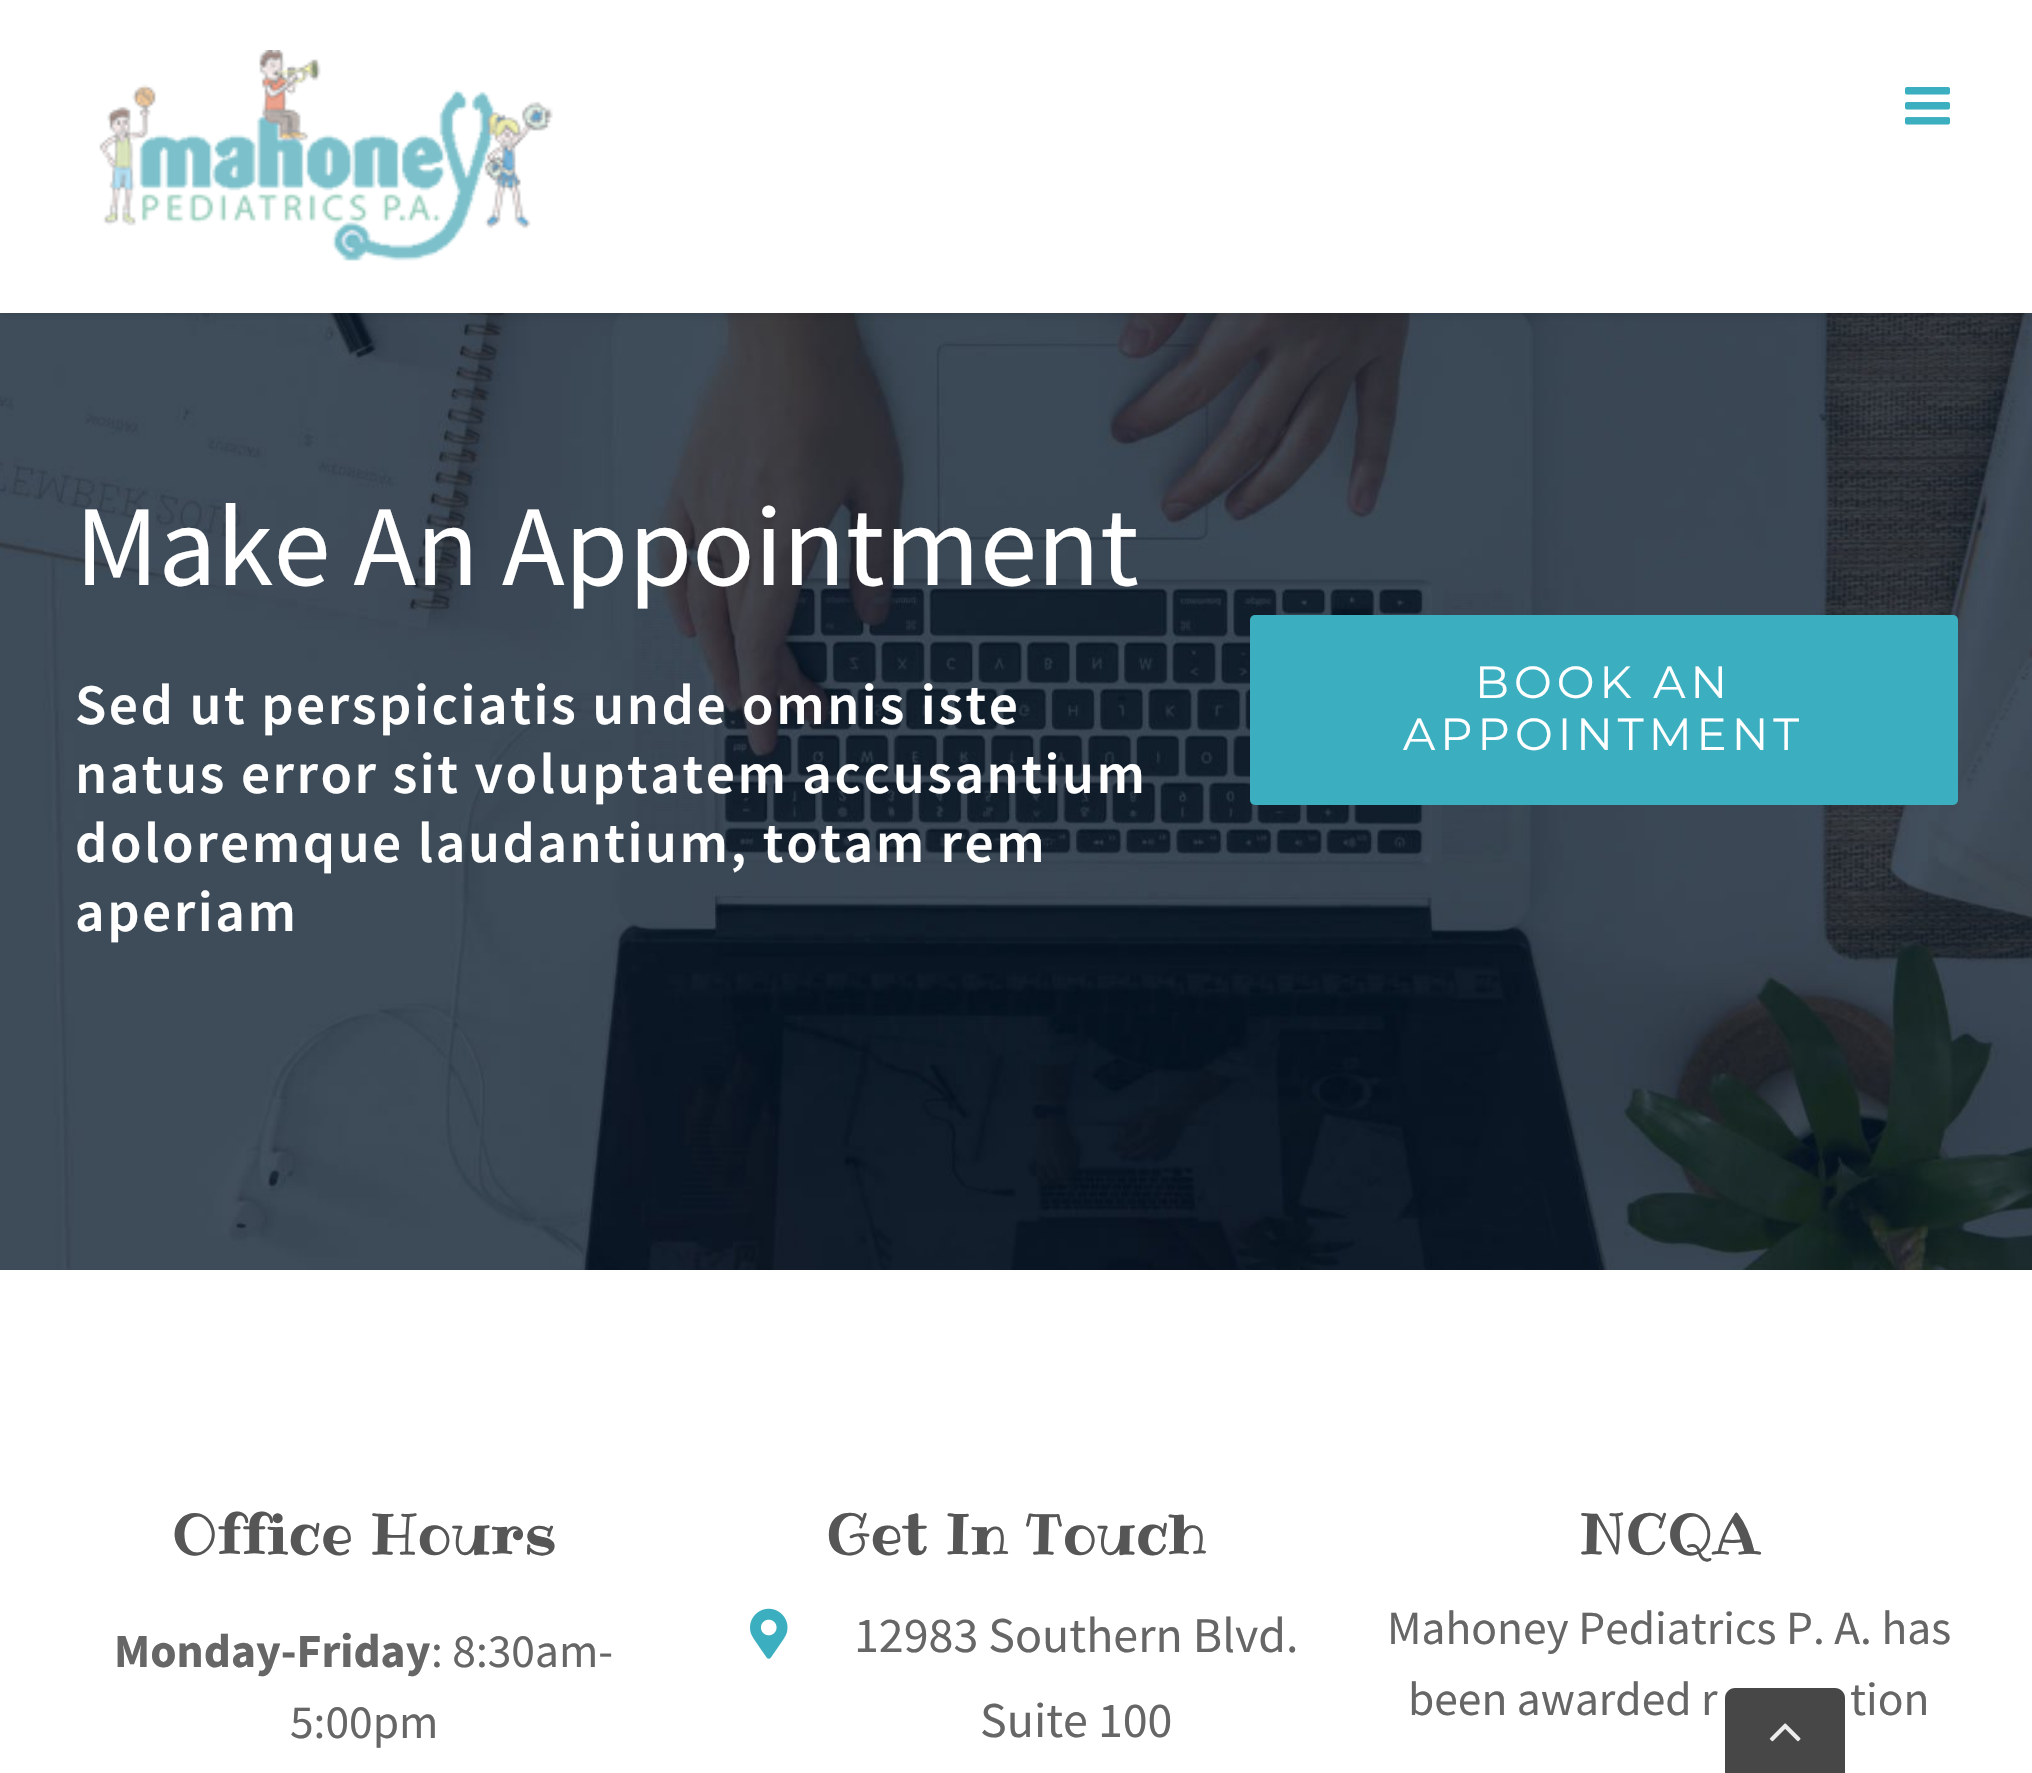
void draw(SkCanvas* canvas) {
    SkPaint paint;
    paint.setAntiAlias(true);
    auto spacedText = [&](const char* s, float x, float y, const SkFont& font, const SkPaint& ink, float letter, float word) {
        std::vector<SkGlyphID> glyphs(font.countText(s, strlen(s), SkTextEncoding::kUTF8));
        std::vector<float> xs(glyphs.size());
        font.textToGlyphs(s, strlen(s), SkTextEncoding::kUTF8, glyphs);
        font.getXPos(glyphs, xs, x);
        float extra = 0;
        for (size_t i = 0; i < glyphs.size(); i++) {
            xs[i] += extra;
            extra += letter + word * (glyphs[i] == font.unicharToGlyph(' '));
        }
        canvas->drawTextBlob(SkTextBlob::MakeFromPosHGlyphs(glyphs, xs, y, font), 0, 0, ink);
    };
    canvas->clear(0xFFFFFFFF);
    canvas->drawImageRect(SkImages::DeferredFromEncodedData(SkData::MakeFromFileName("img3.png")), SkRect::MakeXYWH(0, 313, 2032, 957), SkSamplingOptions());
    paint.setColor(0x1F000000);
    paint.setMaskFilter(SkMaskFilter::MakeBlur(kNormal_SkBlurStyle, 4));
    canvas->drawRect(SkRect::MakeXYWH(0, 3, 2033, 312), paint);
    paint.setMaskFilter(nullptr);
    paint.setColor(0xFFFFFFFF);
    canvas->drawRect(SkRect::MakeXYWH(0, 0, 2032, 313), paint);
    canvas->drawImageRect(SkImages::DeferredFromEncodedData(SkData::MakeFromFileName("img1.png")), SkRect::MakeXYWH(99, 50, 454, 211), SkSamplingOptions());
    canvas->drawImageRect(SkImages::DeferredFromEncodedData(SkData::MakeFromFileName("img2.png")), SkRect::MakeXYWH(1905, 87, 45, 38), SkSamplingOptions());
    SkFont font1(fontMgr->matchFamilyStyle("Source Sans Pro", SkFontStyle::Normal()), 115);
    font1.setSubpixel(true);
    canvas->drawString("Make An Appointment", 75, 585, font1, paint);
    SkFont font2(fontMgr->matchFamilyStyle("Source Sans Pro", SkFontStyle(600, SkFontStyle::kNormal_Width, SkFontStyle::kUpright_Slant)), 57.5f);
    font2.setSubpixel(true);
    spacedText("Sed ut perspiciatis unde omnis iste", 75, 724, font2, paint, 2.5f, 0);
    spacedText("natus error sit voluptatem accusantium", 75, 793, font2, paint, 2.5f, 0);
    spacedText("doloremque laudantium, totam rem", 75, 862, font2, paint, 2.5f, 0);
    spacedText("aperiam", 75, 931, font2, paint, 2.5f, 0);
    paint.setColor(0xFF3BAFBF);
    canvas->drawRoundRect(SkRect::MakeXYWH(1250, 615, 708, 190), 5, 5, paint);
    SkFont font3(fontMgr->matchFamilyStyle("Montserrat", SkFontStyle::Normal()), 45);
    font3.setSubpixel(true);
    paint.setColor(0xFFFFFFFF);
    spacedText("BOOK AN", 1475, 698, font3, paint, 5, 0);
    spacedText("APPOINTMENT", 1403, 750, font3, paint, 5, 0);
    SkFont font4(fontMgr->matchFamilyStyle("Ribeye", SkFontStyle::Normal()), 56.75f);
    font4.setSubpixel(true);
    paint.setColor(0xFF565656);
    canvas->drawString("Office Hours", 172, 1554, font4, paint);
    SkFont font5(fontMgr->matchFamilyStyle("Source Sans Pro", SkFontStyle::Bold()), 47.5f);
    font5.setSubpixel(true);
    paint.setColor(0xFF666666);
    canvas->drawString("Monday-Friday", 114, 1667, font5, paint);
    SkFont font6(fontMgr->matchFamilyStyle("Source Sans Pro", SkFontStyle::Normal()), 47.5f);
    font6.setSubpixel(true);
    canvas->drawString(": 8:30am-", 431, 1667, font6, paint);
    canvas->drawString("5:00pm", 290, 1738, font6, paint);
    paint.setColor(0xFF565656);
    canvas->drawString("Get In Touch", 826, 1554, font4, paint);
    canvas->drawImageRect(SkImages::DeferredFromEncodedData(SkData::MakeFromFileName("img4.png")), SkRect::MakeXYWH(750, 1608, 38, 51), SkSamplingOptions());
    SkFont font7(fontMgr->matchFamilyStyle("Source Sans Pro", SkFontStyle::Normal()), 50);
    font7.setSubpixel(true);
    paint.setColor(0xFF666666);
    canvas->drawString("12983 Southern Blvd.", 854, 1652, font7, paint);
    canvas->drawString("Suite 100", 980, 1737, font7, paint);
    paint.setColor(0xFF565656);
    canvas->drawString("NCQA", 1579, 1554, font4, paint);
    paint.setColor(0xFF666666);
    canvas->drawString("Mahoney Pediatrics P. A. has", 1387, 1644, font6, paint);
    canvas->drawString("been awarded r", 1408, 1715, font6, paint);
    canvas->drawString("tion", 1850, 1715, font6, paint);
    paint.setColor(0xE6333333);
    canvas->drawPath(SkPathBuilder().moveTo(1735, 1688).lineTo(1835, 1688).cubicTo(1840.5f, 1688, 1845, 1692.5f, 1845, 1698).lineTo(1845, 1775).lineTo(1725, 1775).lineTo(1725, 1698).cubicTo(1725, 1692.5f, 1729.5f, 1688, 1735, 1688).close().detach(), paint);
    canvas->drawImageRect(SkImages::DeferredFromEncodedData(SkData::MakeFromFileName("img5.png")), SkRect::MakeXYWH(1769, 1723, 32, 19), SkSamplingOptions());
}
